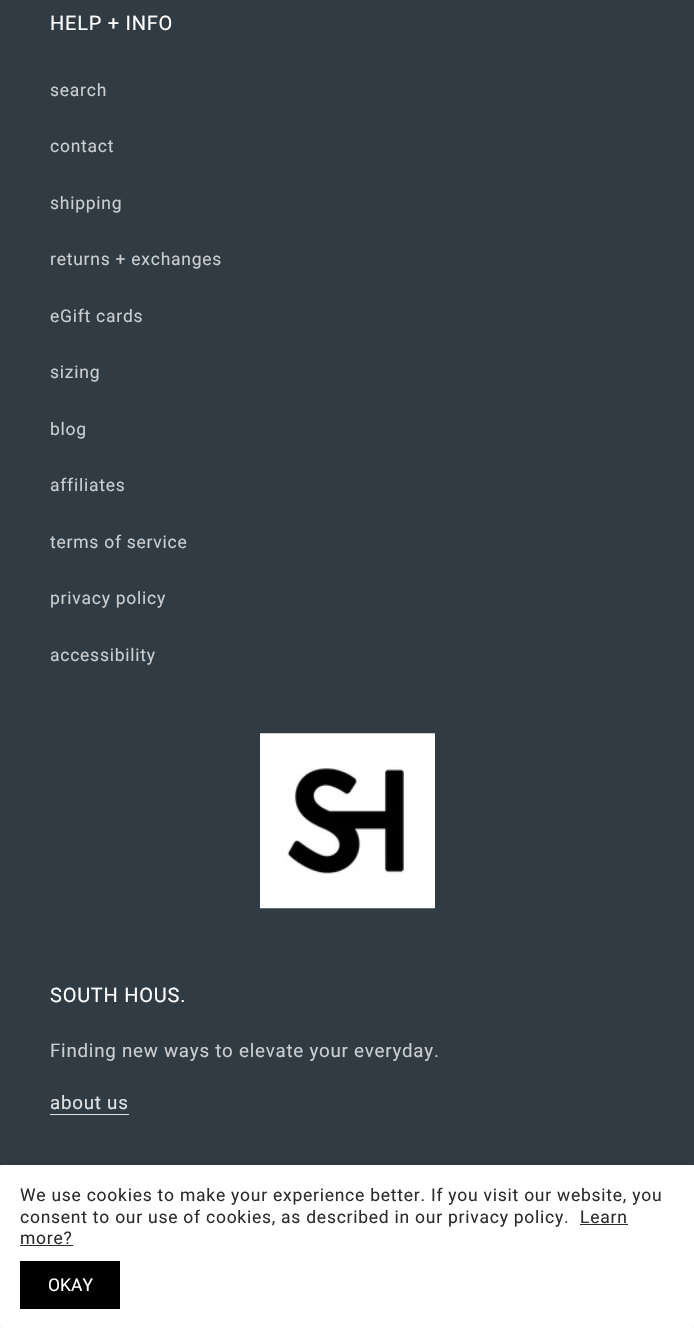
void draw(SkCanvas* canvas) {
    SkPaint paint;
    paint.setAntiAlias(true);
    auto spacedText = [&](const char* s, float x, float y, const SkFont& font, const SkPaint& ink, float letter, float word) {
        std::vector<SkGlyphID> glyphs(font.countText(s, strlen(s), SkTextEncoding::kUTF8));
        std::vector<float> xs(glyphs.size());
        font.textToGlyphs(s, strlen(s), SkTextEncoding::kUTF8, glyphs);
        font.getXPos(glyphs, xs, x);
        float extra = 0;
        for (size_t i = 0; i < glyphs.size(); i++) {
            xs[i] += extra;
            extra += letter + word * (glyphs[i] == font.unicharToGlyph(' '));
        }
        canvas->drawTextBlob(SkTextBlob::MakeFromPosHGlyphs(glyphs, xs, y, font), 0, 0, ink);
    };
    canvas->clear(0xFF303B43);
    SkFont font1(fontMgr->matchFamilyStyle("Roboto", SkFontStyle::Normal()), 20);
    font1.setSubpixel(true);
    paint.setColor(0xFFFFFFFF);
    spacedText("HELP + INFO", 50, 30, font1, paint, 0.75f, 0);
    SkFont font2(fontMgr->matchFamilyStyle("Roboto", SkFontStyle::Normal()), 17.5f);
    font2.setSubpixel(true);
    paint.setColor(0xFFCBCED0);
    spacedText("search", 50, 96, font2, paint, 0.75f, 0);
    spacedText("contact", 50, 152, font2, paint, 0.75f, 0);
    spacedText("shipping", 50, 209, font2, paint, 0.75f, 0);
    spacedText("returns + exchanges", 50, 265, font2, paint, 0.75f, 0);
    spacedText("eGift cards", 50, 322, font2, paint, 0.75f, 0);
    spacedText("sizing", 50, 378, font2, paint, 0.75f, 0);
    spacedText("blog", 50, 435, font2, paint, 0.75f, 0);
    spacedText("affiliates", 50, 491, font2, paint, 0.75f, 0);
    spacedText("terms of service", 50, 548, font2, paint, 0.75f, 0);
    spacedText("privacy policy", 50, 604, font2, paint, 0.75f, 0);
    spacedText("accessibility", 50, 661, font2, paint, 0.75f, 0);
    canvas->drawImageRect(SkImages::DeferredFromEncodedData(SkData::MakeFromFileName("img1.png")), SkRect::MakeXYWH(260, 733, 175, 176), SkSamplingOptions());
    paint.setColor(0xFFFFFFFF);
    spacedText("SOUTH HOUS.", 50, 1002, font1, paint, 0.75f, 0);
    SkFont font3(fontMgr->matchFamilyStyle("Roboto", SkFontStyle::Normal()), 18.75f);
    font3.setSubpixel(true);
    paint.setColor(0xFFCBCED0);
    spacedText("Finding new ways to elevate your everyday.", 50, 1057, font3, paint, 0.75f, 0);
    paint.setColor(0xFFE0E2E3);
    spacedText("about us", 50, 1109, font3, paint, 0.75f, 0);
    canvas->drawRect(SkRect::MakeXYWH(50, 1114, 79, 1), paint);
    paint.setColor(0xFFFFFFFF);
    canvas->drawRect(SkRect::MakeXYWH(0, 1165, 694, 163), paint);
    canvas->save();
    canvas->clipPath(SkPathBuilder(SkPathFillType::kEvenOdd).moveTo(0, 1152).lineTo(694, 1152).lineTo(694, 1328).lineTo(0, 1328).close().moveTo(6, 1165).lineTo(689, 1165).cubicTo(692.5f, 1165, 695, 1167.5f, 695, 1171).lineTo(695, 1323).cubicTo(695, 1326.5f, 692.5f, 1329, 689, 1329).lineTo(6, 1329).cubicTo(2.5f, 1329, 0, 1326.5f, 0, 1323).lineTo(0, 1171).cubicTo(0, 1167.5f, 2.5f, 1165, 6, 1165).close().detach(), true);
    paint.setColor(0x1F000000);
    paint.setMaskFilter(SkMaskFilter::MakeBlur(kNormal_SkBlurStyle, 4));
    canvas->drawRoundRect(SkRect::MakeXYWH(0, 1165, 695, 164), 6, 6, paint);
    paint.setMaskFilter(nullptr);
    canvas->restore();
    paint.setColor(0xFF2D2D2D);
    spacedText("We use cookies to make your experience better. If you visit our website, you", 20, 1201, font2, paint, 0.75f, 0);
    spacedText("consent to our use of cookies, as described in our privacy policy.", 20, 1223, font2, paint, 0.75f, 0);
    spacedText("Learn", 580, 1223, font2, paint, 0.75f, 0);
    canvas->drawRect(SkRect::MakeXYWH(580, 1224, 48, 1), paint);
    spacedText("more?", 20, 1244, font2, paint, 0.75f, 0);
    canvas->drawRect(SkRect::MakeXYWH(20, 1245, 53, 1), paint);
    paint.setColor(0xFF000000);
    canvas->drawRect(SkRect::MakeXYWH(20, 1261, 100, 48), paint);
    paint.setColor(0xFFFFFFFF);
    canvas->drawString("OKAY", 48, 1291, font2, paint);
}
